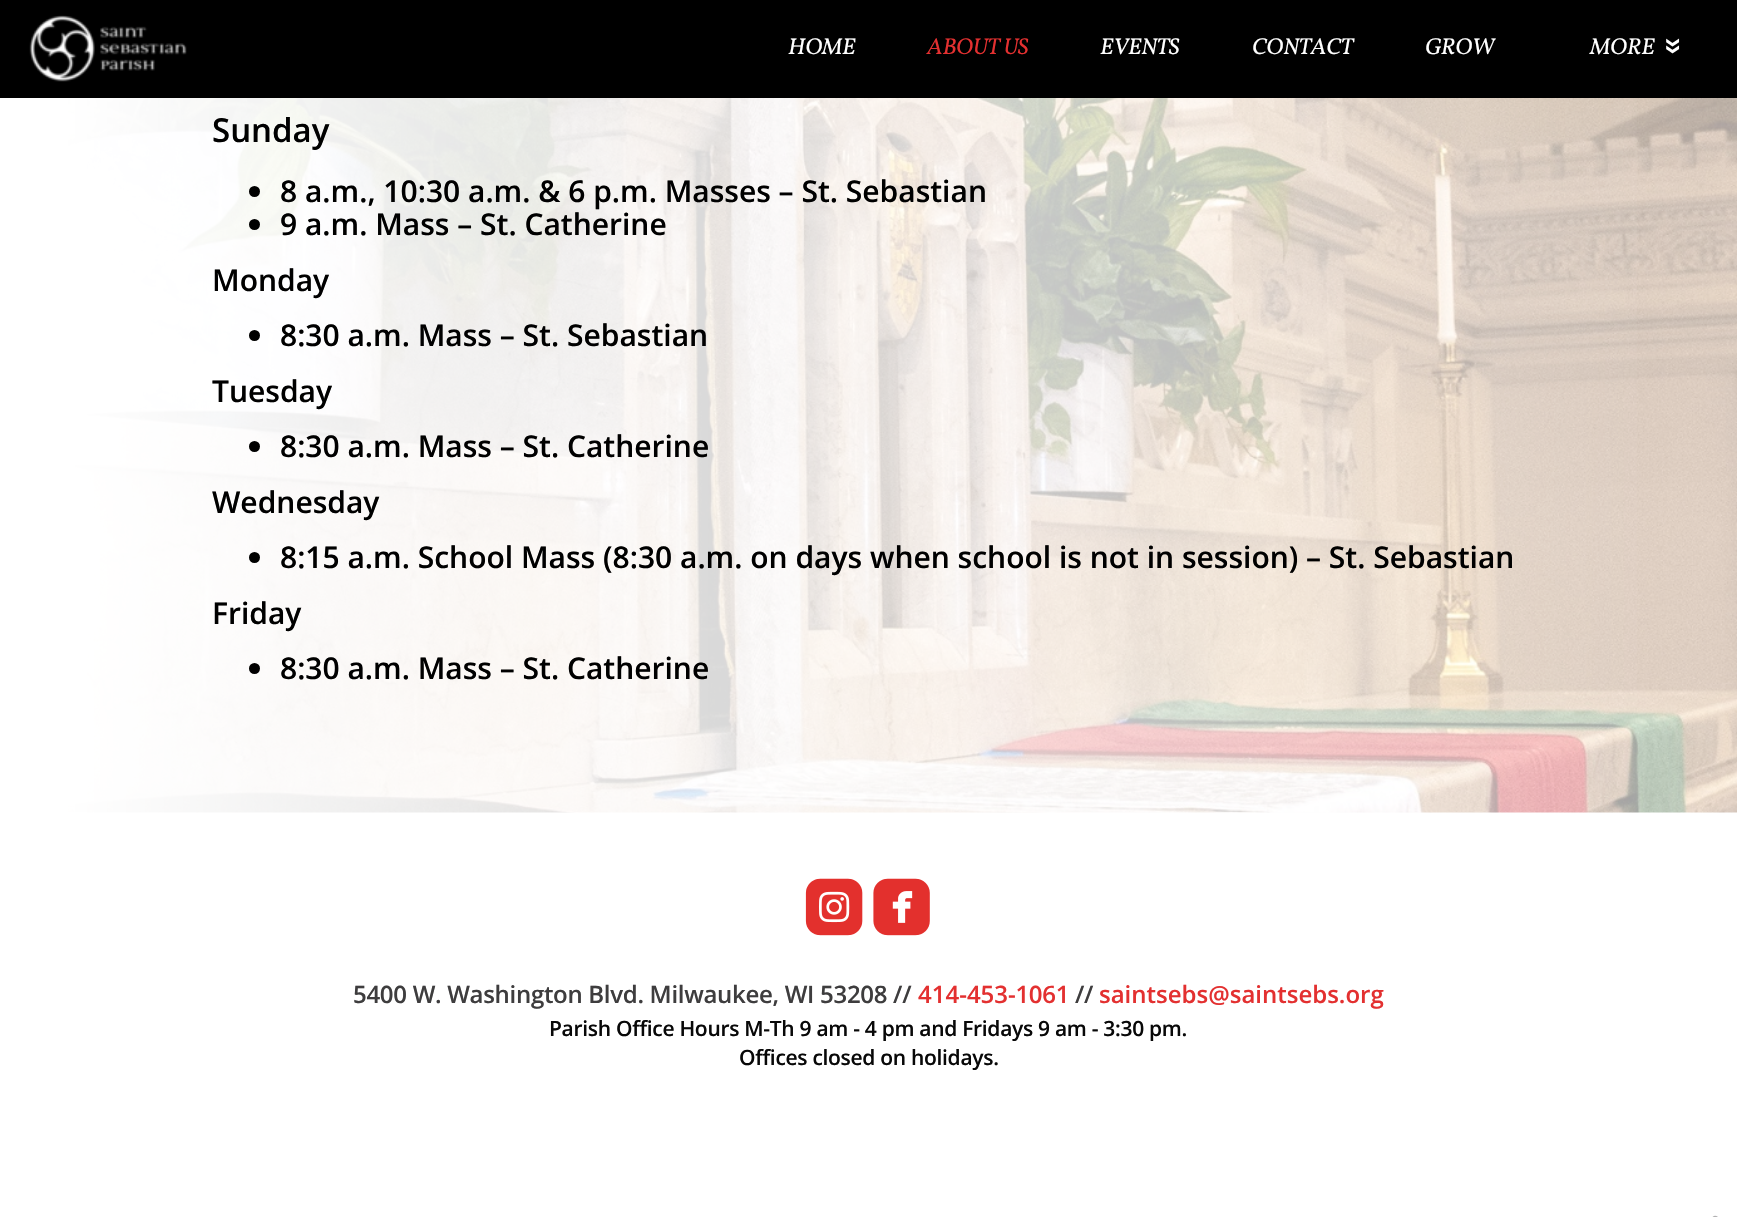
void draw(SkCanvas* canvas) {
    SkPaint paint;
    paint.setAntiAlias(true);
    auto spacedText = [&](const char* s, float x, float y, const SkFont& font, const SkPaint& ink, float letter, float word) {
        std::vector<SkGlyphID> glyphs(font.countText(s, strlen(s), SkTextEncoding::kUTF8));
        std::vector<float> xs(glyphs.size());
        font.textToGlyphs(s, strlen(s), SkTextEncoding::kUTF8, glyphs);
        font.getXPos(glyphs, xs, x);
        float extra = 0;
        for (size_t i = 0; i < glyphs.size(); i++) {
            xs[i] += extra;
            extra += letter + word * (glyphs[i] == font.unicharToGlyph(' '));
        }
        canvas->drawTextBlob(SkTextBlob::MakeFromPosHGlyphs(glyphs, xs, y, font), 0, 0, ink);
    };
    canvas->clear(0xFFFFFFFF);
    paint.setColor(0xFF000000);
    canvas->drawRect(SkRect::MakeXYWH(0, 0, 1737, 98), paint);
    canvas->drawImageRect(SkImages::DeferredFromEncodedData(SkData::MakeFromFileName("img1.png")), SkRect::MakeXYWH(29, 15, 158, 67), SkSamplingOptions());
    SkFont font1(fontMgr->matchFamilyStyle("Vollkorn", SkFontStyle::Italic()), 23);
    font1.setSubpixel(true);
    paint.setColor(0xFFFFFFFF);
    spacedText("HOME", 788, 54, font1, paint, -0.25f, 0);
    paint.setColor(0xFFE33030);
    spacedText("ABOUT US", 927, 54, font1, paint, -0.25f, 0);
    paint.setColor(0xFFFFFFFF);
    spacedText("EVENTS", 1100, 54, font1, paint, -0.25f, 0);
    spacedText("CONTACT", 1252, 54, font1, paint, -0.25f, 0);
    spacedText("GROW", 1425, 54, font1, paint, -0.25f, 0);
    spacedText("MORE", 1590, 54, font1, paint, -0.25f, 0);
    canvas->drawImageRect(SkImages::DeferredFromEncodedData(SkData::MakeFromFileName("img2.png")), SkRect::MakeXYWH(1666, 38, 14, 16), SkSamplingOptions());
    canvas->drawImageRect(SkImages::DeferredFromEncodedData(SkData::MakeFromFileName("img3.png")), SkRect::MakeXYWH(62, 98, 1675, 715), SkSamplingOptions());
    {
        const SkColor colors[] = {0xFFFFFFFF, 0x00FFFFFF};
        const float stops[] = {0.03f, 0.97f};
        const SkPoint ends[] = {{0, 342}, {1737, 342}};
        paint.setShader(SkGradientShader::MakeLinear(ends, colors, stops, 2, SkTileMode::kClamp));
        paint.setAlpha(255);
    }
    canvas->drawRect(SkRect::MakeXYWH(62, 98, 1575, 715), paint);
    SkFont font2(fontMgr->matchFamilyStyle("Open Sans", SkFontStyle(600, SkFontStyle::kNormal_Width, SkFontStyle::kUpright_Slant)), 33);
    font2.setSubpixel(true);
    paint.setShader(nullptr);
    paint.setColor(0xFF000000);
    canvas->drawString("Sunday", 212, 142, font2, paint);
    canvas->drawCircle(254.5f, 191.5f, 5.5f, paint);
    SkFont font3(fontMgr->matchFamilyStyle("Open Sans", SkFontStyle(600, SkFontStyle::kNormal_Width, SkFontStyle::kUpright_Slant)), 30);
    font3.setSubpixel(true);
    canvas->drawString("8 a.m., 10:30 a.m. & 6 p.m. Masses – St. Sebastian", 280, 202, font3, paint);
    canvas->drawCircle(254.5f, 224.5f, 5.5f, paint);
    canvas->drawString("9 a.m. Mass – St. Catherine", 280, 235, font3, paint);
    canvas->drawString("Monday", 212, 291, font3, paint);
    canvas->drawCircle(254.5f, 335.5f, 5.5f, paint);
    canvas->drawString("8:30 a.m. Mass – St. Sebastian", 280, 346, font3, paint);
    canvas->drawString("Tuesday", 212, 402, font3, paint);
    canvas->drawCircle(254.5f, 446.5f, 5.5f, paint);
    canvas->drawString("8:30 a.m. Mass – St. Catherine", 280, 457, font3, paint);
    canvas->drawString("Wednesday", 212, 513, font3, paint);
    canvas->drawCircle(254.5f, 557.5f, 5.5f, paint);
    canvas->drawString("8:15 a.m. School Mass (8:30 a.m. on days when school is not in session) – St. Sebastian", 280, 568, font3, paint);
    canvas->drawString("Friday", 212, 624, font3, paint);
    canvas->drawCircle(254.5f, 668.5f, 5.5f, paint);
    canvas->drawString("8:30 a.m. Mass – St. Catherine", 280, 679, font3, paint);
    canvas->drawImageRect(SkImages::DeferredFromEncodedData(SkData::MakeFromFileName("img4.png")), SkRect::MakeXYWH(805, 878, 58, 58), SkSamplingOptions());
    canvas->drawImageRect(SkImages::DeferredFromEncodedData(SkData::MakeFromFileName("img5.png")), SkRect::MakeXYWH(873, 878, 57, 58), SkSamplingOptions());
    SkFont font4(fontMgr->matchFamilyStyle("Open Sans", SkFontStyle(600, SkFontStyle::kNormal_Width, SkFontStyle::kUpright_Slant)), 24);
    font4.setSubpixel(true);
    paint.setColor(0xFF3E3D3E);
    spacedText("5400 W. Washington Blvd. Milwaukee, WI 53208 //", 353, 1003, font4, paint, -0.3f, 0);
    paint.setColor(0xFFE33030);
    canvas->drawString("414-453", 918, 1003, font4, paint);
    spacedText("-1061", 1008, 1003, font4, paint, -0.3f, 0);
    paint.setColor(0xFF3E3D3E);
    spacedText("//", 1075, 1003, font4, paint, -0.3f, 0);
    paint.setColor(0xFFE33030);
    canvas->drawString("saintsebs@saintsebs.org", 1099, 1003, font4, paint);
    SkFont font5(fontMgr->matchFamilyStyle("Open Sans", SkFontStyle(600, SkFontStyle::kNormal_Width, SkFontStyle::kUpright_Slant)), 21);
    font5.setSubpixel(true);
    paint.setColor(0xFF080808);
    spacedText("Parish Office Hours M-Th 9 am - 4 pm and Fridays 9 am - 3:30 pm.", 549, 1036, font5, paint, -0.3f, 0);
    spacedText("Offices closed on holidays.", 739, 1065, font5, paint, -0.3f, 0);
    canvas->drawImageRect(SkImages::DeferredFromEncodedData(SkData::MakeFromFileName("img6.png")), SkRect::MakeXYWH(1712, 1215, 6, 2), SkSamplingOptions());
}
